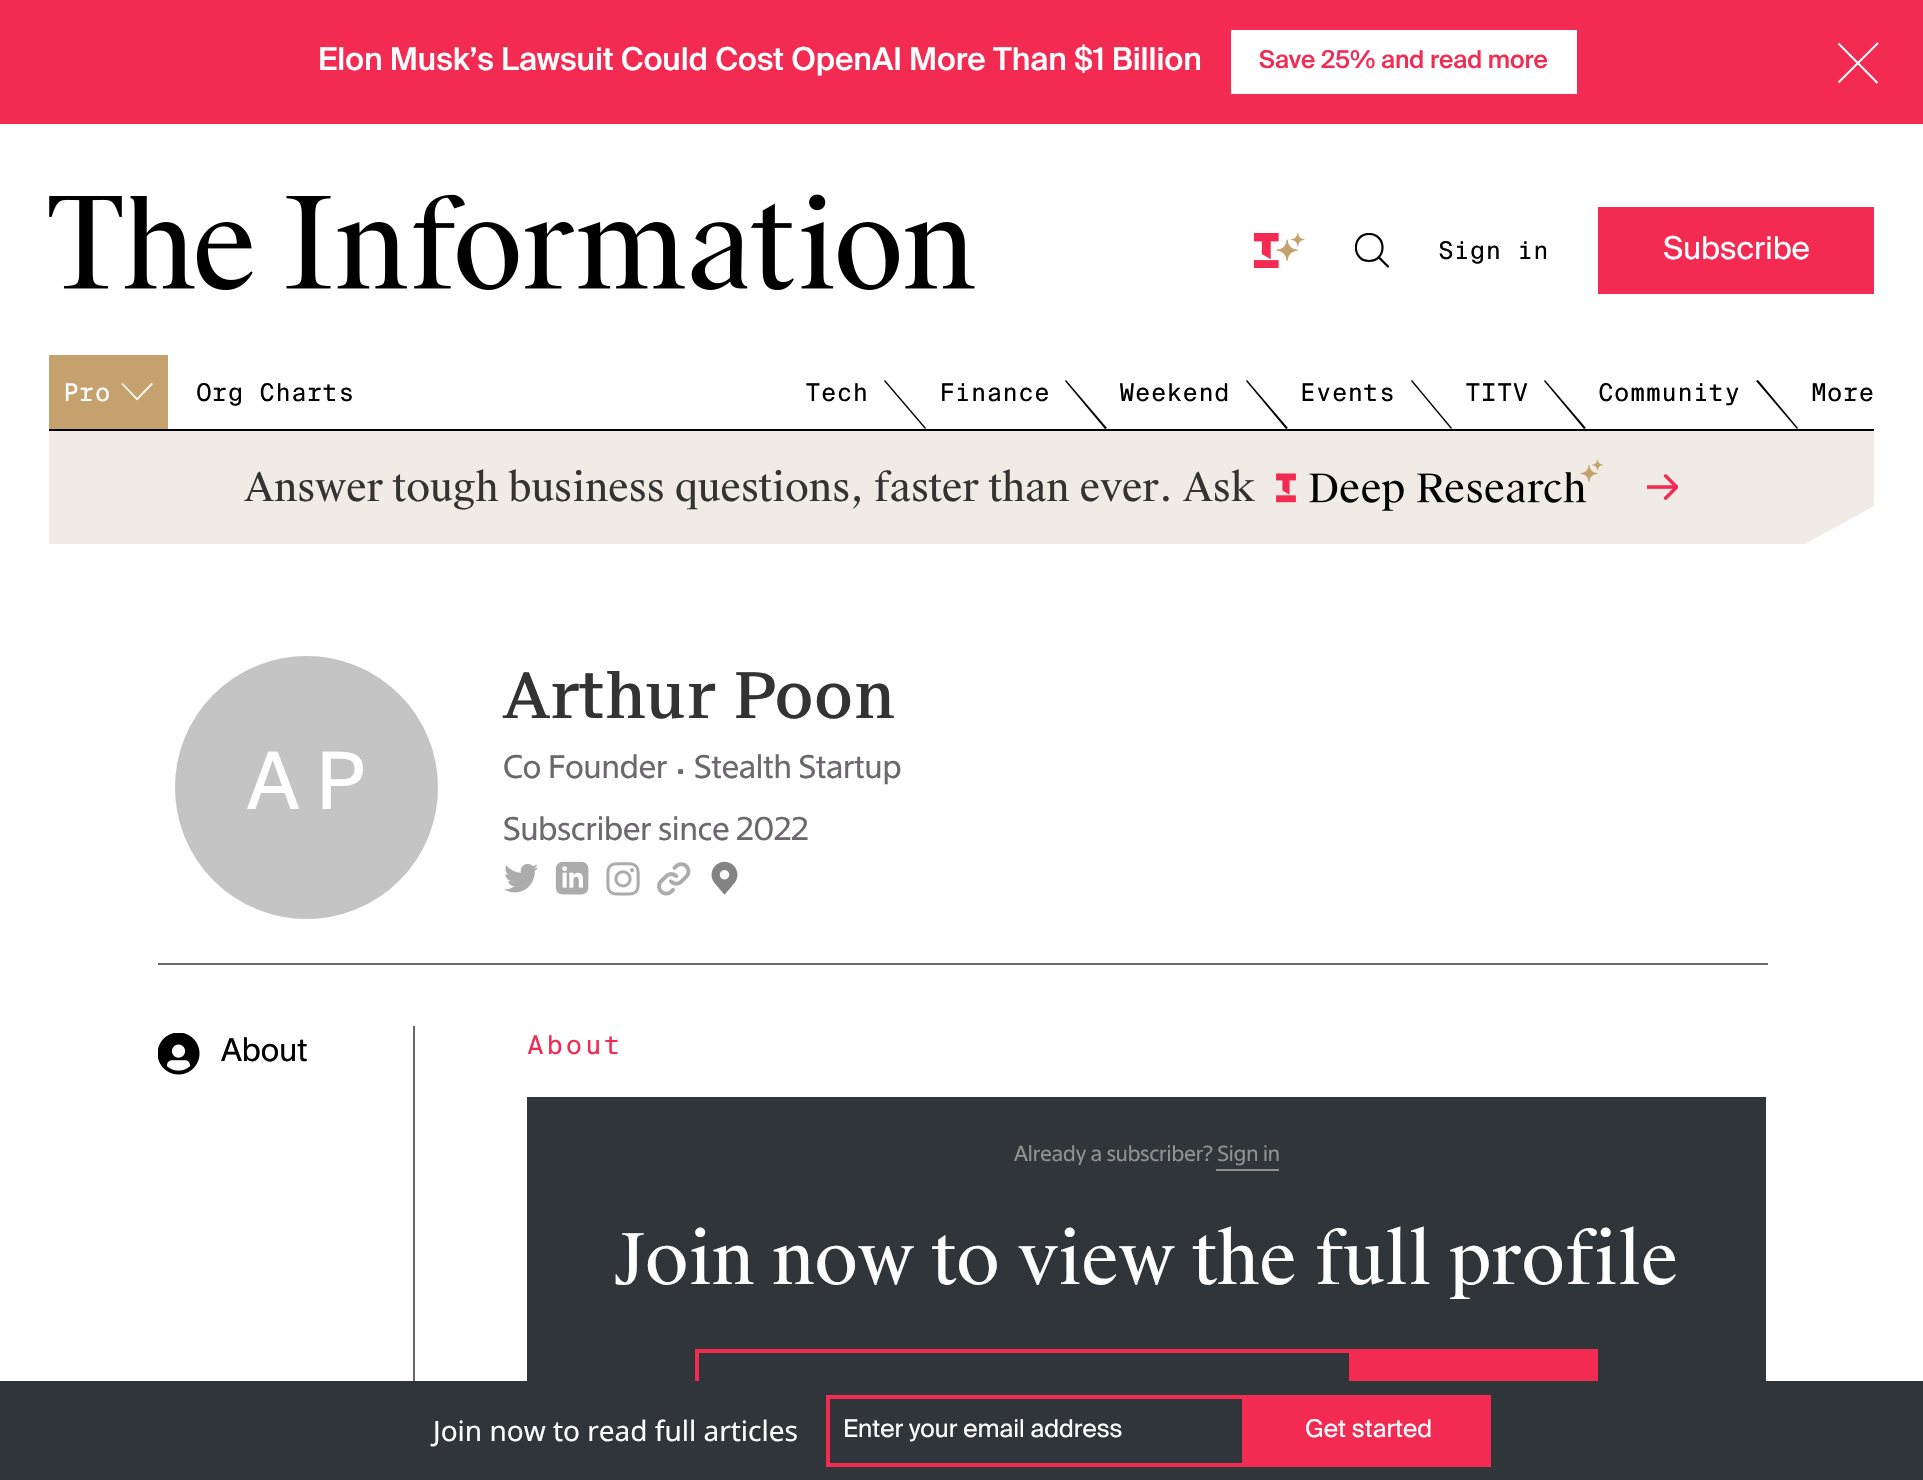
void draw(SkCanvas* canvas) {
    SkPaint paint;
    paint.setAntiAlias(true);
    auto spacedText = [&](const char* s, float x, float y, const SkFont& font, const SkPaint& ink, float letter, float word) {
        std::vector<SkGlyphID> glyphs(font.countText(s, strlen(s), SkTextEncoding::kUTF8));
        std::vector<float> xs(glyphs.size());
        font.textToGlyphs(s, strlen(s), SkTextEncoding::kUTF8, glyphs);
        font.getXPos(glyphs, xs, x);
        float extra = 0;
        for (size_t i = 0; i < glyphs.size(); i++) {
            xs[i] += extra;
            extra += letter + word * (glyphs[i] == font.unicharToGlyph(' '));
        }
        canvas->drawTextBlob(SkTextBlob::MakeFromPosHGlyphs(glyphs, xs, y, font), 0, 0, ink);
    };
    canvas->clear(0xFFFFFFFF);
    paint.setColor(0xFFF32A52);
    canvas->drawRect(SkRect::MakeXYWH(0, 0, 1923, 124), paint);
    SkFont font1(fontMgr->matchFamilyStyle("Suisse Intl", SkFontStyle(500, SkFontStyle::kNormal_Width, SkFontStyle::kUpright_Slant)), 31.5f);
    font1.setSubpixel(true);
    paint.setColor(0xFFFFFFFF);
    canvas->drawString("Elon Musk’s Lawsuit Could Cost OpenAI More Than $1 Billion", 318, 70, font1, paint);
    canvas->drawRect(SkRect::MakeXYWH(1231, 30, 346, 64), paint);
    SkFont font2(fontMgr->matchFamilyStyle("Suisse Intl", SkFontStyle(500, SkFontStyle::kNormal_Width, SkFontStyle::kUpright_Slant)), 24.5f);
    font2.setSubpixel(true);
    paint.setColor(0xFFF32A52);
    canvas->drawString("Save 25% and read more", 1259, 68, font2, paint);
    paint.setStyle(SkPaint::kStroke_Style);
    paint.setStrokeWidth(2);
    paint.setColor(0xFFFFFFFF);
    canvas->drawPath(SkPathBuilder().moveTo(1838.5f, 82.5f).lineTo(1878, 43).moveTo(1877.5f, 83).lineTo(1838.5f, 43.5f).detach(), paint);
    canvas->drawImageRect(SkImages::DeferredFromEncodedData(SkData::MakeFromFileName("img1.png")), SkRect::MakeXYWH(49, 194, 926, 96), SkSamplingOptions());
    canvas->drawImageRect(SkImages::DeferredFromEncodedData(SkData::MakeFromFileName("img2.png")), SkRect::MakeXYWH(1253, 233, 52, 35), SkSamplingOptions());
    canvas->save();
    canvas->clipRect(SkRect::MakeXYWH(1355, 233, 35, 35));
    paint.setStrokeWidth(2.2f);
    paint.setStrokeCap(SkPaint::kRound_Cap);
    paint.setStrokeJoin(SkPaint::kRound_Join);
    paint.setColor(0xFF000000);
    canvas->drawPath(SkPathBuilder().moveTo(1379.5f, 258).lineTo(1388, 266.5f).moveTo(1369, 261).cubicTo(1387, 261, 1387, 234, 1369, 234).cubicTo(1351.5f, 234, 1351.5f, 261, 1369, 261).close().detach(), paint);
    canvas->restore();
    SkFont font3(fontMgr->matchFamilyStyle("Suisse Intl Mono", SkFontStyle::Normal()), 24.5f);
    font3.setSubpixel(true);
    paint.setStyle(SkPaint::kFill_Style);
    canvas->drawString("Sign in", 1438, 259, font3, paint);
    paint.setColor(0xFFF32A52);
    canvas->drawRect(SkRect::MakeXYWH(1598, 207, 276, 87), paint);
    SkFont font4(fontMgr->matchFamilyStyle("Suisse Intl", SkFontStyle::Normal()), 31.5f);
    font4.setSubpixel(true);
    paint.setColor(0xFFFFFFFF);
    canvas->drawString("Subscribe", 1663, 259, font4, paint);
    paint.setColor(0xFF000000);
    canvas->drawRect(SkRect::MakeXYWH(49, 429, 1825, 2), paint);
    paint.setColor(0xFFC5A26D);
    canvas->drawRect(SkRect::MakeXYWH(49, 355, 119, 74), paint);
    paint.setColor(0xFFFFFFFF);
    canvas->drawString("Pro", 63, 401, font3, paint);
    canvas->drawPath(SkPathBuilder(SkPathFillType::kEvenOdd).moveTo(153, 384).lineTo(137, 400.5f).lineTo(121.5f, 384).lineTo(122.5f, 383).lineTo(137, 398).lineTo(151.5f, 383).close().detach(), paint);
    paint.setColor(0xFF000000);
    canvas->drawString("Org Charts", 196, 401, font3, paint);
    canvas->drawString("Tech", 805, 401, font3, paint);
    canvas->drawPath(SkPathBuilder().moveTo(885, 380).lineTo(926, 428).lineTo(925, 429).lineTo(884, 381).close().detach(), paint);
    canvas->drawString("Finance", 939, 401, font3, paint);
    canvas->drawPath(SkPathBuilder().moveTo(1066, 380).lineTo(1107, 428).lineTo(1105, 429).lineTo(1065, 381).close().detach(), paint);
    canvas->drawString("Weekend", 1119, 401, font3, paint);
    canvas->drawPath(SkPathBuilder().moveTo(1247, 380).lineTo(1288, 428).lineTo(1286, 429).lineTo(1246, 381).close().detach(), paint);
    canvas->drawString("Events", 1300, 401, font3, paint);
    canvas->drawPath(SkPathBuilder().moveTo(1412, 380).lineTo(1452, 428).lineTo(1451, 429).lineTo(1411, 381).close().detach(), paint);
    canvas->drawString("TITV", 1465, 401, font3, paint);
    canvas->drawPath(SkPathBuilder().moveTo(1545, 380).lineTo(1586, 428).lineTo(1584, 429).lineTo(1544, 381).close().detach(), paint);
    canvas->drawString("Community", 1598, 401, font3, paint);
    canvas->drawPath(SkPathBuilder().moveTo(1758, 380).lineTo(1798, 428).lineTo(1797, 429).lineTo(1756, 381).close().detach(), paint);
    canvas->drawString("More", 1811, 401, font3, paint);
    paint.setColor(0xFFF0ECE5);
    canvas->drawPath(SkPathBuilder().moveTo(49, 431).lineTo(49, 544).lineTo(1805, 544).lineTo(1874, 506).lineTo(1874, 431).close().detach(), paint);
    SkFont font5(fontMgr->matchFamilyStyle("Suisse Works", SkFontStyle::Normal()), 38.5f);
    font5.setSubpixel(true);
    paint.setColor(0xFF333333);
    canvas->drawString("Answer tough business questions, faster than ever. Ask", 244, 501, font5, paint);
    canvas->drawImageRect(SkImages::DeferredFromEncodedData(SkData::MakeFromFileName("img3.png")), SkRect::MakeXYWH(1276, 459, 327, 52), SkSamplingOptions());
    canvas->drawImageRect(SkImages::DeferredFromEncodedData(SkData::MakeFromFileName("img4.png")), SkRect::MakeXYWH(1646, 474, 32, 26), SkSamplingOptions());
    paint.setColor(0xFF6D686E);
    canvas->drawRect(SkRect::MakeXYWH(158, 963, 1610, 2), paint);
    paint.setColor(0xFFC4C4C4);
    canvas->drawCircle(306.5f, 787.5f, 130.5f, paint);
    paint.setStyle(SkPaint::kStroke_Style);
    paint.setStrokeWidth(2);
    paint.setStrokeCap(SkPaint::kButt_Cap);
    paint.setStrokeJoin(SkPaint::kMiter_Join);
    canvas->drawCircle(306.5f, 787.5f, 130.5f, paint);
    SkFont font6(fontMgr->matchFamilyStyle("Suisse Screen", SkFontStyle::Normal()), 79);
    font6.setSubpixel(true);
    paint.setStyle(SkPaint::kFill_Style);
    paint.setColor(0xFFFFFFFF);
    canvas->drawString("A P", 247, 809, font6, paint);
    SkFont font7(fontMgr->matchFamilyStyle("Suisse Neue", SkFontStyle(500, SkFontStyle::kNormal_Width, SkFontStyle::kUpright_Slant)), 63);
    font7.setSubpixel(true);
    paint.setColor(0xFF333333);
    canvas->drawString("Arthur Poon", 503, 718, font7, paint);
    SkFont font8(fontMgr->matchFamilyStyle("Suisse Screen", SkFontStyle::Normal()), 31.5f);
    font8.setSubpixel(true);
    paint.setColor(0xFF6D686E);
    canvas->drawString("Co Founder", 503, 778, font8, paint);
    SkFont font9(fontMgr->matchFamilyStyle("Suisse Screen", SkFontStyle::Normal()), 42);
    font9.setSubpixel(true);
    canvas->drawString(".", 676, 774, font9, paint);
    canvas->drawString("Stealth Startup", 694, 778, font8, paint);
    canvas->drawString("Subscriber since 2022", 503, 840, font8, paint);
    canvas->drawImageRect(SkImages::DeferredFromEncodedData(SkData::MakeFromFileName("img5.png")), SkRect::MakeXYWH(504, 863, 34, 30), SkSamplingOptions());
    canvas->drawImageRect(SkImages::DeferredFromEncodedData(SkData::MakeFromFileName("img6.png")), SkRect::MakeXYWH(555, 861, 34, 34), SkSamplingOptions());
    canvas->drawImageRect(SkImages::DeferredFromEncodedData(SkData::MakeFromFileName("img7.png")), SkRect::MakeXYWH(606, 862, 34, 34), SkSamplingOptions());
    canvas->drawImageRect(SkImages::DeferredFromEncodedData(SkData::MakeFromFileName("img8.png")), SkRect::MakeXYWH(657, 862, 34, 34), SkSamplingOptions());
    canvas->drawImageRect(SkImages::DeferredFromEncodedData(SkData::MakeFromFileName("img9.png")), SkRect::MakeXYWH(711, 861, 27, 34), SkSamplingOptions());
    canvas->drawImageRect(SkImages::DeferredFromEncodedData(SkData::MakeFromFileName("img10.png")), SkRect::MakeXYWH(158, 1033, 42, 42), SkSamplingOptions());
    paint.setColor(0xFF000000);
    canvas->drawString("About", 221, 1061, font8, paint);
    paint.setColor(0xFF6D686E);
    canvas->drawRect(SkRect::MakeXYWH(413, 1026, 2, 355), paint);
    SkFont font10(fontMgr->matchFamilyStyle("Suisse Intl Mono", SkFontStyle::Normal()), 26);
    font10.setSubpixel(true);
    paint.setColor(0xFFF32A52);
    spacedText("About", 527, 1054, font10, paint, 2.5f, 0);
    paint.setColor(0xFF2F3538);
    canvas->drawRect(SkRect::MakeXYWH(527, 1097, 1239, 284), paint);
    SkFont font11(fontMgr->matchFamilyStyle("Suisse Screen", SkFontStyle::Normal()), 21);
    font11.setSubpixel(true);
    paint.setColor(0xFF90918F);
    canvas->drawString("Already a subscriber? Sign in", 1014, 1161, font11, paint);
    canvas->drawRect(SkRect::MakeXYWH(1216, 1169, 63, 2), paint);
    SkFont font12(fontMgr->matchFamilyStyle("Suisse Works", SkFontStyle::Normal()), 70);
    font12.setSubpixel(true);
    paint.setColor(0xFFFFFFFF);
    canvas->drawString("Join now to view the full profile", 615, 1284, font12, paint);
    paint.setStyle(SkPaint::kStroke_Style);
    paint.setStrokeWidth(4);
    paint.setColor(0xFFF32A52);
    canvas->drawRect(SkRect::MakeXYWH(697, 1351, 654, 68), paint);
    paint.setStyle(SkPaint::kFill_Style);
    canvas->drawRect(SkRect::MakeXYWH(1353, 1349, 245, 32), paint);
    paint.setColor(0xFF2F3538);
    canvas->drawRect(SkRect::MakeXYWH(0, 1381, 1923, 99), paint);
    SkFont font13(fontMgr->matchFamilyStyle("Noto Sans", SkFontStyle::Normal()), 28);
    font13.setSubpixel(true);
    paint.setColor(0xFFFFFFFF);
    canvas->drawString("Join now to read full articles", 433, 1441, font13, paint);
    paint.setStyle(SkPaint::kStroke_Style);
    paint.setColor(0xFFF32A52);
    canvas->drawRect(SkRect::MakeXYWH(828, 1397, 416, 68), paint);
    SkFont font14(fontMgr->matchFamilyStyle("Suisse Intl", SkFontStyle::Normal()), 24.5f);
    font14.setSubpixel(true);
    paint.setStyle(SkPaint::kFill_Style);
    paint.setColor(0xFFFFFFFF);
    canvas->drawString("Enter your email address", 843, 1437, font14, paint);
    paint.setColor(0xFFF32A52);
    canvas->drawRect(SkRect::MakeXYWH(1246, 1395, 245, 72), paint);
    paint.setColor(0xFFFFFFFF);
    canvas->drawString("Get started", 1305, 1437, font14, paint);
}
